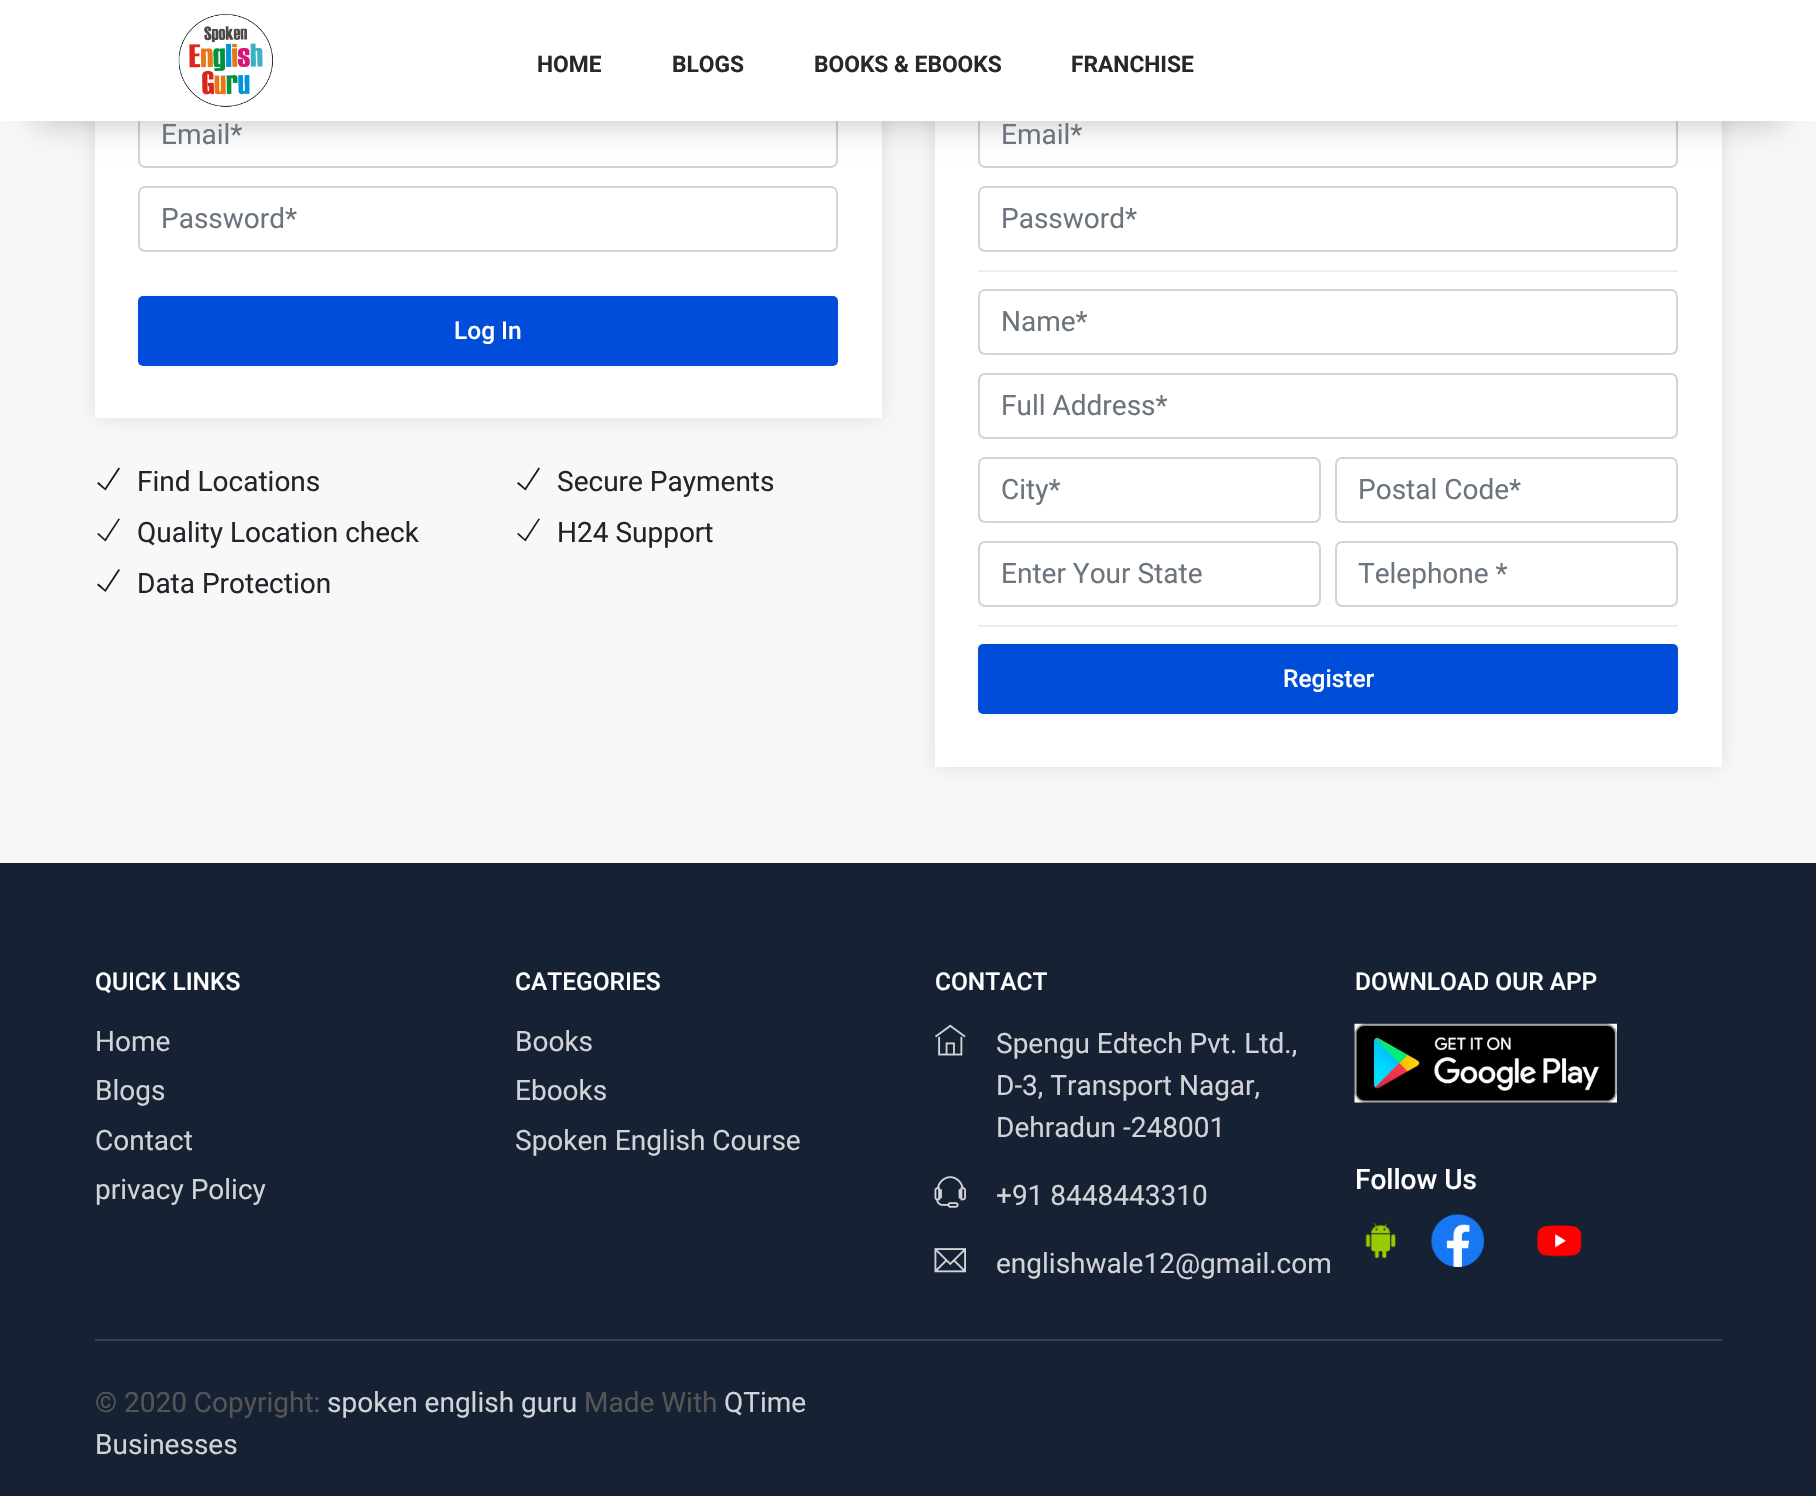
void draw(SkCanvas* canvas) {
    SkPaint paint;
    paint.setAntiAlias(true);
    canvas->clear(0xFF172134);
    paint.setColor(0xFFF8F8F8);
    canvas->drawRect(SkRect::MakeXYWH(0, 121, 1816, 742), paint);
    paint.setColor(0x1A000000);
    paint.setMaskFilter(SkMaskFilter::MakeBlur(kNormal_SkBlurStyle, 9));
    canvas->drawRect(SkRect::MakeXYWH(95, 58, 787, 360), paint);
    paint.setMaskFilter(nullptr);
    paint.setColor(0xFFFFFFFF);
    canvas->drawRect(SkRect::MakeXYWH(95, 121, 787, 297), paint);
    paint.setStyle(SkPaint::kStroke_Style);
    paint.setStrokeWidth(2);
    paint.setColor(0xFFCED4DA);
    canvas->drawRoundRect(SkRect::MakeXYWH(139, 103, 698, 64), 6, 6, paint);
    paint.setStyle(SkPaint::kFill_Style);
    paint.setColor(0x1A000000);
    paint.setMaskFilter(SkMaskFilter::MakeBlur(kNormal_SkBlurStyle, 9));
    canvas->drawRect(SkRect::MakeXYWH(935, 58, 787, 709), paint);
    paint.setMaskFilter(nullptr);
    paint.setColor(0xFFFFFFFF);
    canvas->drawRect(SkRect::MakeXYWH(935, 121, 787, 646), paint);
    paint.setStyle(SkPaint::kStroke_Style);
    paint.setColor(0xFFCED4DA);
    canvas->drawRoundRect(SkRect::MakeXYWH(979, 103, 698, 64), 6, 6, paint);
    paint.setStyle(SkPaint::kFill_Style);
    paint.setColor(0x40000000);
    paint.setMaskFilter(SkMaskFilter::MakeBlur(kNormal_SkBlurStyle, 17.5f));
    canvas->drawRect(SkRect::MakeXYWH(35, 70, 1747, 51), paint);
    paint.setMaskFilter(nullptr);
    paint.setColor(0xFFFFFFFF);
    canvas->drawRect(SkRect::MakeXYWH(0, 0, 1816, 121), paint);
    canvas->drawImageRect(SkImages::DeferredFromEncodedData(SkData::MakeFromFileName("img1.png")), SkRect::MakeXYWH(178, 14, 95, 93), SkSamplingOptions());
    SkFont font1(fontMgr->matchFamilyStyle("Roboto", SkFontStyle::Bold()), 22.75f);
    font1.setSubpixel(true);
    paint.setColor(0xFF282828);
    canvas->drawString("HOME", 537, 72, font1, paint);
    canvas->drawString("BLOGS", 672, 72, font1, paint);
    canvas->drawString("BOOKS & EBOOKS", 814, 72, font1, paint);
    canvas->drawString("FRANCHISE", 1071, 72, font1, paint);
    SkFont font2(fontMgr->matchFamilyStyle("Roboto", SkFontStyle::Normal()), 28);
    font2.setSubpixel(true);
    paint.setColor(0xFF6C757D);
    canvas->drawString("Email*", 161, 144, font2, paint);
    paint.setStyle(SkPaint::kStroke_Style);
    paint.setColor(0xFFCED4DA);
    canvas->drawRoundRect(SkRect::MakeXYWH(139, 187, 698, 64), 6, 6, paint);
    paint.setStyle(SkPaint::kFill_Style);
    paint.setColor(0xFF6C757D);
    canvas->drawString("Password*", 161, 228, font2, paint);
    paint.setColor(0xFF004DDA);
    canvas->drawRoundRect(SkRect::MakeXYWH(138, 296, 700, 70), 5, 5, paint);
    SkFont font3(fontMgr->matchFamilyStyle("Roboto", SkFontStyle(500, SkFontStyle::kNormal_Width, SkFontStyle::kUpright_Slant)), 24.5f);
    font3.setSubpixel(true);
    paint.setColor(0xFFFFFFFF);
    canvas->drawString("Log In", 454, 339, font3, paint);
    paint.setColor(0xFF1A1A1A);
    canvas->drawPath(SkPathBuilder().moveTo(120, 468.5f).lineTo(105.5f, 490.5f).lineTo(97, 483.5f).lineTo(98.5f, 482).lineTo(105, 488).lineTo(118.5f, 467.5f).close().detach(), paint);
    paint.setColor(0xFF212529);
    canvas->drawString("Find Locations", 137, 491, font2, paint);
    paint.setColor(0xFF1A1A1A);
    canvas->drawPath(SkPathBuilder().moveTo(120, 519).lineTo(105.5f, 541.5f).lineTo(97, 534).lineTo(98.5f, 533).lineTo(105, 539).lineTo(118.5f, 518.5f).close().detach(), paint);
    paint.setColor(0xFF212529);
    canvas->drawString("Quality Location check", 137, 542, font2, paint);
    paint.setColor(0xFF1A1A1A);
    canvas->drawPath(SkPathBuilder().moveTo(120, 570).lineTo(105.5f, 592).lineTo(97, 585).lineTo(98.5f, 583.5f).lineTo(105, 589.5f).lineTo(118.5f, 569).close().detach(), paint);
    paint.setColor(0xFF212529);
    canvas->drawString("Data Protection", 137, 593, font2, paint);
    paint.setColor(0xFF1A1A1A);
    canvas->drawPath(SkPathBuilder().moveTo(540, 468.5f).lineTo(525.5f, 490.5f).lineTo(517, 483.5f).lineTo(518.5f, 482).lineTo(525, 488).lineTo(538.5f, 467.5f).close().detach(), paint);
    paint.setColor(0xFF212529);
    canvas->drawString("Secure Payments", 557, 491, font2, paint);
    paint.setColor(0xFF1A1A1A);
    canvas->drawPath(SkPathBuilder().moveTo(540, 519).lineTo(525.5f, 541.5f).lineTo(517, 534).lineTo(518.5f, 533).lineTo(525, 539).lineTo(538.5f, 518.5f).close().detach(), paint);
    paint.setColor(0xFF212529);
    canvas->drawString("H24 Support", 557, 542, font2, paint);
    paint.setColor(0xFF6C757D);
    canvas->drawString("Email*", 1001, 144, font2, paint);
    paint.setStyle(SkPaint::kStroke_Style);
    paint.setColor(0xFFCED4DA);
    canvas->drawRoundRect(SkRect::MakeXYWH(979, 187, 698, 64), 6, 6, paint);
    paint.setStyle(SkPaint::kFill_Style);
    paint.setColor(0xFF6C757D);
    canvas->drawString("Password*", 1001, 228, font2, paint);
    paint.setColor(0xFFEDEDED);
    canvas->drawRect(SkRect::MakeXYWH(978, 270, 700, 2), paint);
    paint.setStyle(SkPaint::kStroke_Style);
    paint.setColor(0xFFCED4DA);
    canvas->drawRoundRect(SkRect::MakeXYWH(979, 290, 698, 64), 6, 6, paint);
    paint.setStyle(SkPaint::kFill_Style);
    paint.setColor(0xFF6C757D);
    canvas->drawString("Name*", 1001, 331, font2, paint);
    paint.setStyle(SkPaint::kStroke_Style);
    paint.setColor(0xFFCED4DA);
    canvas->drawRoundRect(SkRect::MakeXYWH(979, 374, 698, 64), 6, 6, paint);
    paint.setStyle(SkPaint::kFill_Style);
    paint.setColor(0xFF6C757D);
    canvas->drawString("Full Address*", 1001, 415, font2, paint);
    paint.setStyle(SkPaint::kStroke_Style);
    paint.setColor(0xFFCED4DA);
    canvas->drawRoundRect(SkRect::MakeXYWH(979, 458, 341, 64), 6, 6, paint);
    paint.setStyle(SkPaint::kFill_Style);
    paint.setColor(0xFF6C757D);
    canvas->drawString("City*", 1001, 499, font2, paint);
    paint.setStyle(SkPaint::kStroke_Style);
    paint.setColor(0xFFCED4DA);
    canvas->drawRoundRect(SkRect::MakeXYWH(1336, 458, 341, 64), 6, 6, paint);
    paint.setStyle(SkPaint::kFill_Style);
    paint.setColor(0xFF6C757D);
    canvas->drawString("Postal Code*", 1358, 499, font2, paint);
    paint.setStyle(SkPaint::kStroke_Style);
    paint.setColor(0xFFCED4DA);
    canvas->drawRoundRect(SkRect::MakeXYWH(979, 542, 341, 64), 6, 6, paint);
    paint.setStyle(SkPaint::kFill_Style);
    paint.setColor(0xFF6C757D);
    canvas->drawString("Enter Your State", 1001, 583, font2, paint);
    paint.setStyle(SkPaint::kStroke_Style);
    paint.setColor(0xFFCED4DA);
    canvas->drawRoundRect(SkRect::MakeXYWH(1336, 542, 341, 64), 6, 6, paint);
    paint.setStyle(SkPaint::kFill_Style);
    paint.setColor(0xFF6C757D);
    canvas->drawString("Telephone *", 1358, 583, font2, paint);
    paint.setColor(0xFFEDEDED);
    canvas->drawRect(SkRect::MakeXYWH(978, 625, 700, 2), paint);
    paint.setColor(0xFF004DDA);
    canvas->drawRoundRect(SkRect::MakeXYWH(978, 644, 700, 70), 5, 5, paint);
    paint.setColor(0xFFFFFFFF);
    canvas->drawString("Register", 1283, 687, font3, paint);
    canvas->drawString("QUICK LINKS", 95, 990, font3, paint);
    paint.setColor(0xFFD1D3D6);
    canvas->drawString("Home", 95, 1051, font2, paint);
    canvas->drawString("Blogs", 95, 1100, font2, paint);
    canvas->drawString("Contact", 95, 1150, font2, paint);
    canvas->drawString("privacy Policy", 95, 1199, font2, paint);
    paint.setColor(0xFFFFFFFF);
    canvas->drawString("CATEGORIES", 515, 990, font3, paint);
    paint.setColor(0xFFD1D3D6);
    canvas->drawString("Books", 515, 1051, font2, paint);
    canvas->drawString("Ebooks", 515, 1100, font2, paint);
    canvas->drawString("Spoken English Course", 515, 1150, font2, paint);
    paint.setColor(0xFFFFFFFF);
    canvas->drawString("CONTACT", 935, 990, font3, paint);
    canvas->drawImageRect(SkImages::DeferredFromEncodedData(SkData::MakeFromFileName("img2.png")), SkRect::MakeXYWH(935, 1024, 31, 32), SkSamplingOptions());
    paint.setColor(0xFFD1D3D6);
    canvas->drawString("Spengu Edtech Pvt. Ltd.,", 996, 1053, font2, paint);
    canvas->drawString("D-3, Transport Nagar,", 996, 1095, font2, paint);
    canvas->drawString("Dehradun -248001", 996, 1137, font2, paint);
    canvas->drawImageRect(SkImages::DeferredFromEncodedData(SkData::MakeFromFileName("img3.png")), SkRect::MakeXYWH(934, 1176, 32, 32), SkSamplingOptions());
    canvas->drawString("+91 8448443310", 996, 1205, font2, paint);
    canvas->drawImageRect(SkImages::DeferredFromEncodedData(SkData::MakeFromFileName("img4.png")), SkRect::MakeXYWH(934, 1248, 32, 25), SkSamplingOptions());
    canvas->drawString("englishwale12@gmail.com", 996, 1273, font2, paint);
    paint.setColor(0xFFFFFFFF);
    canvas->drawString("DOWNLOAD OUR APP", 1355, 990, font3, paint);
    canvas->drawImageRect(SkImages::DeferredFromEncodedData(SkData::MakeFromFileName("img5.png")), SkRect::MakeXYWH(1354, 1023, 263, 80), SkSamplingOptions());
    SkFont font4(fontMgr->matchFamilyStyle("Roboto", SkFontStyle(500, SkFontStyle::kNormal_Width, SkFontStyle::kUpright_Slant)), 28);
    font4.setSubpixel(true);
    canvas->drawString("Follow Us", 1355, 1189, font4, paint);
    canvas->drawImageRect(SkImages::DeferredFromEncodedData(SkData::MakeFromFileName("img6.png")), SkRect::MakeXYWH(1365, 1223, 31, 36), SkSamplingOptions());
    canvas->drawImageRect(SkImages::DeferredFromEncodedData(SkData::MakeFromFileName("img7.png")), SkRect::MakeXYWH(1431, 1214, 53, 53), SkSamplingOptions());
    canvas->drawImageRect(SkImages::DeferredFromEncodedData(SkData::MakeFromFileName("img8.png")), SkRect::MakeXYWH(1537, 1225, 45, 32), SkSamplingOptions());
    paint.setColor(0xFF3A4252);
    canvas->drawRect(SkRect::MakeXYWH(95, 1339, 1627, 2), paint);
    paint.setColor(0xFF555555);
    canvas->drawString("© 2020 Copyright:", 95, 1412, font2, paint);
    paint.setColor(0xFFD1D3D6);
    canvas->drawString("spoken english guru", 327, 1412, font2, paint);
    paint.setColor(0xFF555555);
    canvas->drawString("Made With", 584, 1412, font2, paint);
    paint.setColor(0xFFD1D3D6);
    canvas->drawString("QTime", 724, 1412, font2, paint);
    canvas->drawString("Businesses", 95, 1454, font2, paint);
}
